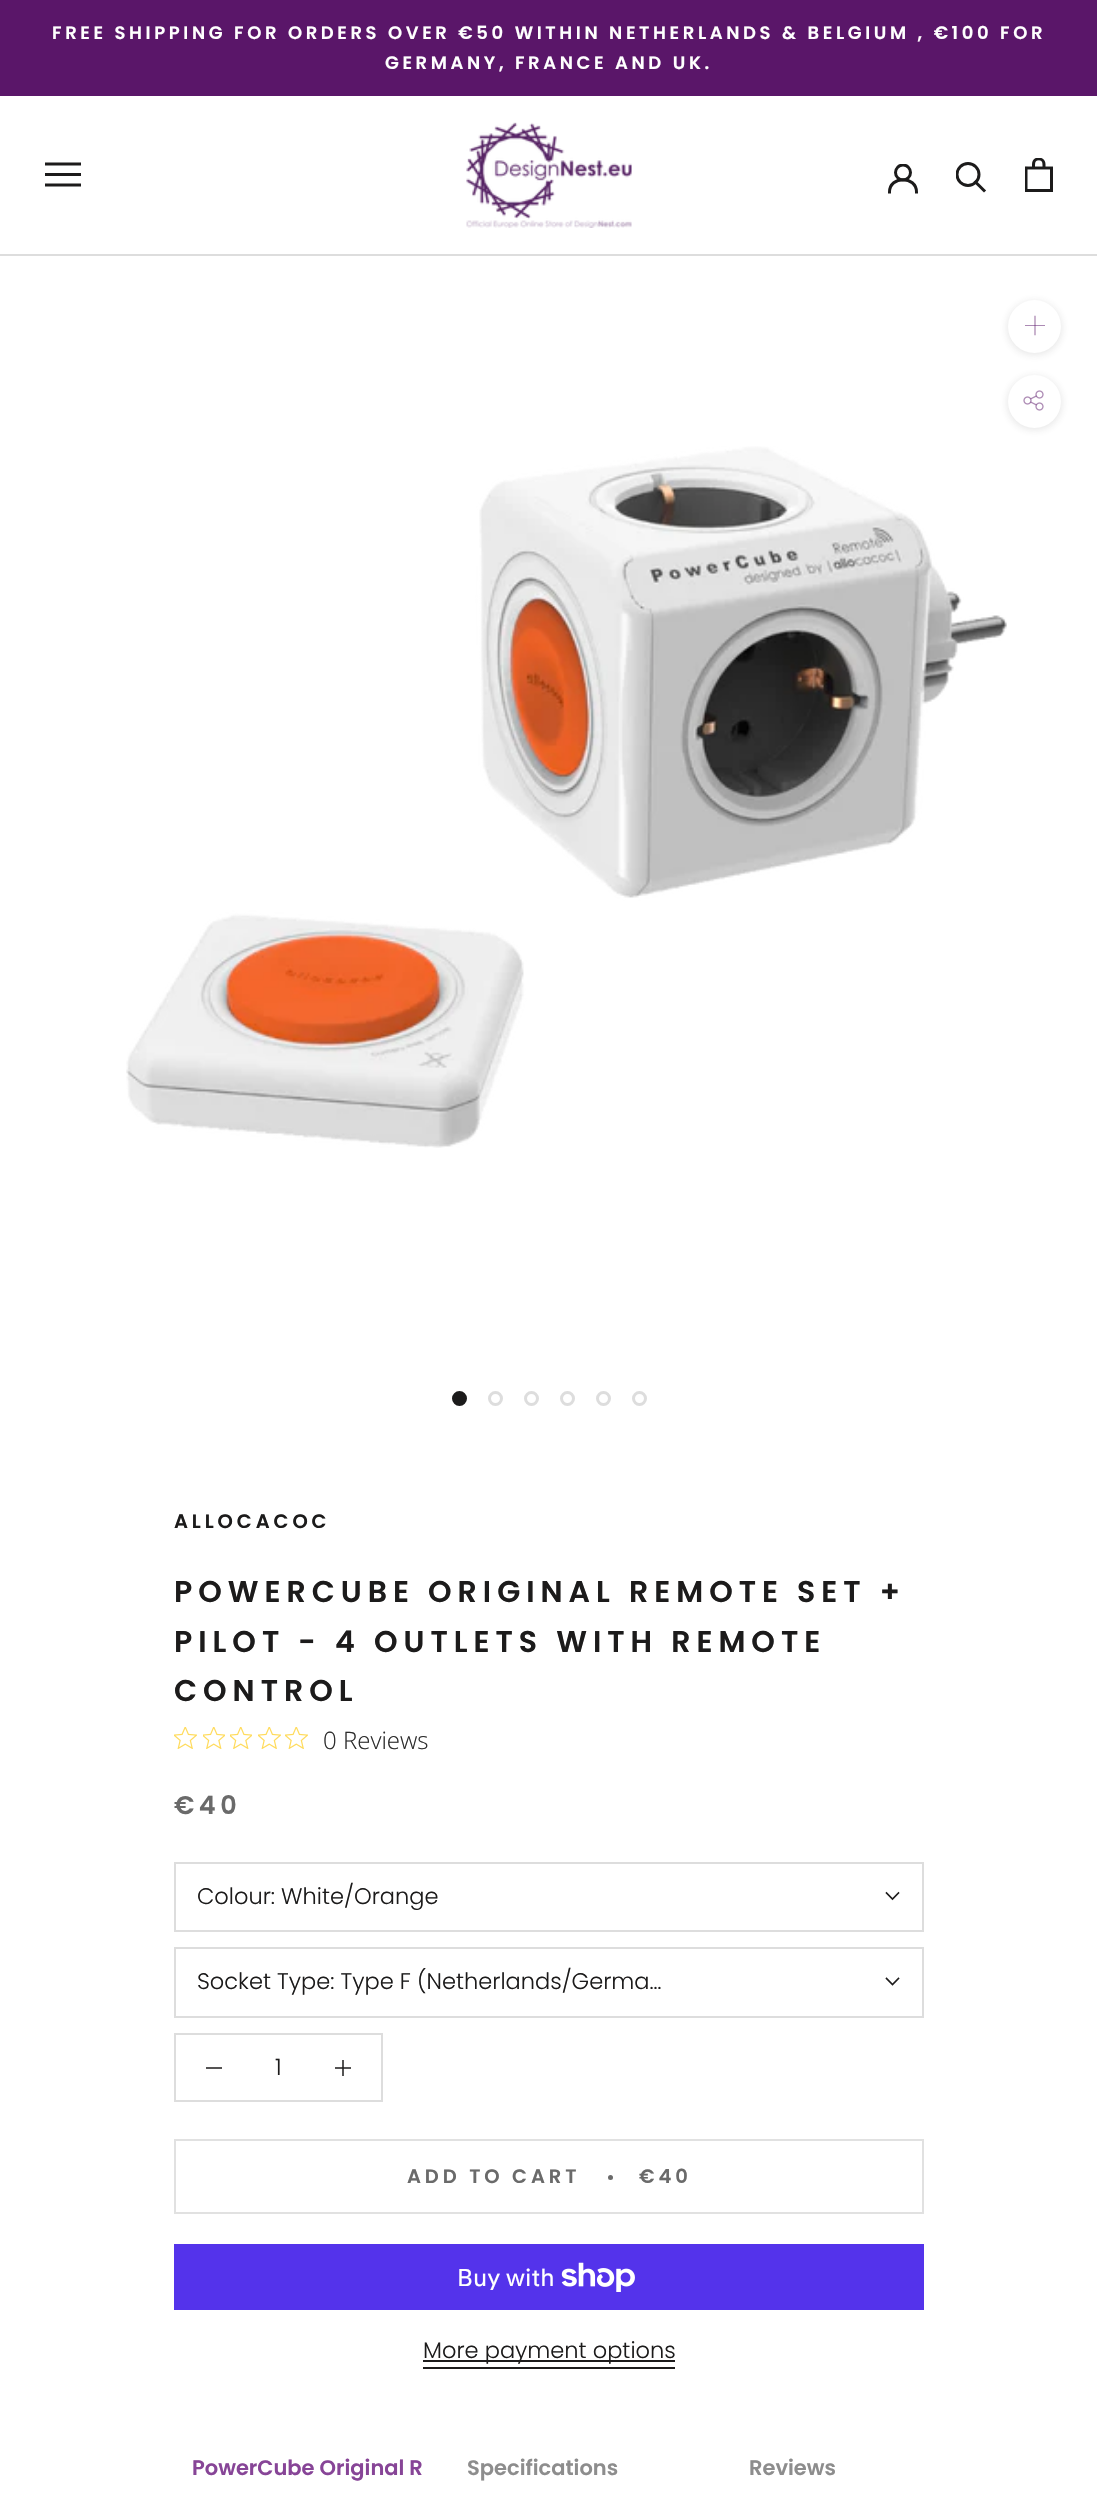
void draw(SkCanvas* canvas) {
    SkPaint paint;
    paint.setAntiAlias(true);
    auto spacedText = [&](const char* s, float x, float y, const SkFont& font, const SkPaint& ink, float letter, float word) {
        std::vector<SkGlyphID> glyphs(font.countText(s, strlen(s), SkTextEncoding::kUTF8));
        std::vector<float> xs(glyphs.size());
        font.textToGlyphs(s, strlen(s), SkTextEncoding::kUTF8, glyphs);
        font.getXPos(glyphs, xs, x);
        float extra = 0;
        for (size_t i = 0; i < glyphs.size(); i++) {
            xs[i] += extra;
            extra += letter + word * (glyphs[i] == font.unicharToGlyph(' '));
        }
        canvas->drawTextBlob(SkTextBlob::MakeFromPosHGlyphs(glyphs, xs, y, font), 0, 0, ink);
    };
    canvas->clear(0xFFFFFFFF);
    paint.setColor(0xFF555454);
    canvas->drawRect(SkRect::MakeXYWH(335, 2067, 16, 2), paint);
    paint.setColor(0xFF5A1669);
    canvas->drawRect(SkRect::MakeXYWH(0, 0, 1097, 96), paint);
    SkFont font1(fontMgr->matchFamilyStyle("Poppins", SkFontStyle(600, SkFontStyle::kNormal_Width, SkFontStyle::kUpright_Slant)), 18);
    font1.setSubpixel(true);
    paint.setColor(0xFFFFFFFF);
    spacedText("FREE SHIPPING FOR ORDERS OVER €50 WITHIN NETHERLANDS & BELGIUM , €100 FOR", 52, 39, font1, paint, 3.6f, 0);
    spacedText("GERMANY, FRANCE AND UK.", 385, 69, font1, paint, 3.6f, 0);
    paint.setColor(0xFFDDDDDD);
    canvas->drawRect(SkRect::MakeXYWH(0, 254, 1097, 2), paint);
    paint.setColor(0xFF1C1B1B);
    canvas->drawPath(SkPathBuilder().moveTo(45, 186.5f).lineTo(45, 183.5f).lineTo(81, 183.5f).lineTo(81, 186.5f).close().moveTo(45, 173).lineTo(81, 173).lineTo(81, 176).lineTo(45, 176).close().moveTo(45, 162.5f).lineTo(81, 162.5f).lineTo(81, 165.5f).lineTo(45, 165.5f).close().detach(), paint);
    canvas->drawImageRect(SkImages::DeferredFromEncodedData(SkData::MakeFromFileName("img1.png")), SkRect::MakeXYWH(466, 122, 166, 106), SkSamplingOptions());
    paint.setStyle(SkPaint::kStroke_Style);
    paint.setStrokeWidth(3);
    paint.setStrokeCap(SkPaint::kSquare_Cap);
    canvas->drawPath(SkPathBuilder().moveTo(889.5f, 192).cubicTo(889.5f, 175.5f, 916.5f, 175.5f, 916.5f, 192).detach(), paint);
    canvas->save();
    canvas->clipRect(SkRect::MakeXYWH(888, 164, 30, 30));
    paint.setStrokeCap(SkPaint::kButt_Cap);
    canvas->drawCircle(903, 172.5f, 7.5f, paint);
    canvas->restore();
    paint.setStrokeCap(SkPaint::kSquare_Cap);
    canvas->drawPath(SkPathBuilder().moveTo(984, 190.5f).lineTo(975.5f, 182).detach(), paint);
    canvas->save();
    canvas->clipRect(SkRect::MakeXYWH(956, 162, 31, 32));
    paint.setStrokeCap(SkPaint::kButt_Cap);
    canvas->drawCircle(968, 174.5f, 11, paint);
    canvas->restore();
    canvas->drawImageRect(SkImages::DeferredFromEncodedData(SkData::MakeFromFileName("img2.png")), SkRect::MakeXYWH(1025, 158, 28, 34), SkSamplingOptions());
    paint.setStyle(SkPaint::kFill_Style);
    paint.setColor(0x26363636);
    paint.setMaskFilter(SkMaskFilter::MakeBlur(kNormal_SkBlurStyle, 4));
    canvas->drawRoundRect(SkRect::MakeXYWH(1008, 302, 53, 52), 26, 26, paint);
    paint.setMaskFilter(nullptr);
    paint.setColor(0xFFFFFFFF);
    canvas->drawCircle(1034.5f, 326.5f, 26.5f, paint);
    paint.setStyle(SkPaint::kStroke_Style);
    paint.setStrokeWidth(1.3f);
    paint.setStrokeCap(SkPaint::kSquare_Cap);
    paint.setColor(0xFFAD8BB4);
    canvas->drawPath(SkPathBuilder().moveTo(1035, 316.5f).lineTo(1035, 334.5f).detach(), paint);
    paint.setStyle(SkPaint::kFill_Style);
    paint.setColor(0x805A1669);
    canvas->drawRect(SkRect::MakeXYWH(1025, 325, 20, 1), paint);
    paint.setColor(0x26363636);
    paint.setMaskFilter(SkMaskFilter::MakeBlur(kNormal_SkBlurStyle, 4));
    canvas->drawRoundRect(SkRect::MakeXYWH(1008, 377, 53, 52), 26, 26, paint);
    paint.setMaskFilter(nullptr);
    paint.setColor(0xFFFFFFFF);
    canvas->drawCircle(1034.5f, 401.5f, 26.5f, paint);
    canvas->drawImageRect(SkImages::DeferredFromEncodedData(SkData::MakeFromFileName("img3.png")), SkRect::MakeXYWH(1023, 390, 21, 21), SkSamplingOptions());
    canvas->drawImageRect(SkImages::DeferredFromEncodedData(SkData::MakeFromFileName("img4.png")), SkRect::MakeXYWH(126, 446, 881, 702), SkSamplingOptions());
    paint.setColor(0xFF1C1B1B);
    canvas->drawCircle(459.5f, 1398.5f, 6, paint);
    paint.setStyle(SkPaint::kStroke_Style);
    paint.setStrokeWidth(3);
    paint.setStrokeCap(SkPaint::kButt_Cap);
    canvas->drawCircle(459.5f, 1398.5f, 6, paint);
    paint.setColor(0xFFDDDDDD);
    canvas->drawCircle(495.5f, 1398.5f, 6, paint);
    canvas->drawCircle(531.5f, 1398.5f, 6, paint);
    canvas->drawCircle(567.5f, 1398.5f, 6, paint);
    canvas->drawCircle(603.5f, 1398.5f, 6, paint);
    canvas->drawCircle(639.5f, 1398.5f, 6, paint);
    SkFont font2(fontMgr->matchFamilyStyle("Poppins", SkFontStyle(600, SkFontStyle::kNormal_Width, SkFontStyle::kUpright_Slant)), 19.5f);
    font2.setSubpixel(true);
    paint.setStyle(SkPaint::kFill_Style);
    paint.setColor(0xFF1C1B1B);
    spacedText("ALLOCACOC", 174, 1528, font2, paint, 3.9f, 0);
    SkFont font3(fontMgr->matchFamilyStyle("Poppins", SkFontStyle(600, SkFontStyle::kNormal_Width, SkFontStyle::kUpright_Slant)), 30);
    font3.setSubpixel(true);
    spacedText("POWERCUBE ORIGINAL REMOTE SET +", 174, 1602, font3, paint, 6, 0);
    spacedText("PILOT - 4 OUTLETS WITH REMOTE", 174, 1652, font3, paint, 6, 0);
    spacedText("CONTROL", 174, 1701, font3, paint, 6, 0);
    canvas->drawImageRect(SkImages::DeferredFromEncodedData(SkData::MakeFromFileName("img5.png")), SkRect::MakeXYWH(174, 1727, 23, 22), SkSamplingOptions());
    canvas->drawImageRect(SkImages::DeferredFromEncodedData(SkData::MakeFromFileName("img6.png")), SkRect::MakeXYWH(203, 1727, 22, 22), SkSamplingOptions());
    canvas->drawImageRect(SkImages::DeferredFromEncodedData(SkData::MakeFromFileName("img6.png")), SkRect::MakeXYWH(230, 1727, 22, 22), SkSamplingOptions());
    canvas->drawImageRect(SkImages::DeferredFromEncodedData(SkData::MakeFromFileName("img5.png")), SkRect::MakeXYWH(258, 1727, 23, 22), SkSamplingOptions());
    canvas->drawImageRect(SkImages::DeferredFromEncodedData(SkData::MakeFromFileName("img5.png")), SkRect::MakeXYWH(285, 1727, 23, 22), SkSamplingOptions());
    SkFont font4(fontMgr->matchFamilyStyle("Open Sans", SkFontStyle(300, SkFontStyle::kNormal_Width, SkFontStyle::kUpright_Slant)), 24);
    font4.setSubpixel(true);
    paint.setColor(0xFF2C2C2C);
    canvas->drawString("0 Reviews", 323, 1749, font4, paint);
    SkFont font5(fontMgr->matchFamilyStyle("Poppins", SkFontStyle(600, SkFontStyle::kNormal_Width, SkFontStyle::kUpright_Slant)), 25.5f);
    font5.setSubpixel(true);
    paint.setColor(0xFF6A6A6A);
    spacedText("€40", 174, 1814, font5, paint, 4.5f, 0);
    paint.setStyle(SkPaint::kStroke_Style);
    paint.setStrokeWidth(2);
    paint.setColor(0xFFDDDDDD);
    canvas->drawRect(SkRect::MakeXYWH(175, 1863, 748, 68), paint);
    SkFont font6(fontMgr->matchFamilyStyle("Poppins", SkFontStyle(300, SkFontStyle::kNormal_Width, SkFontStyle::kUpright_Slant)), 22.5f);
    font6.setSubpixel(true);
    paint.setStyle(SkPaint::kFill_Style);
    paint.setColor(0xFF1C1B1B);
    canvas->drawString("Colour: White/Orange", 197, 1904, font6, paint);
    paint.setStyle(SkPaint::kStroke_Style);
    paint.setStrokeWidth(1.6f);
    paint.setStrokeCap(SkPaint::kSquare_Cap);
    canvas->drawPath(SkPathBuilder().moveTo(898.5f, 1893).lineTo(892.5f, 1899).lineTo(886.5f, 1893).detach(), paint);
    paint.setStrokeWidth(2);
    paint.setStrokeCap(SkPaint::kButt_Cap);
    paint.setColor(0xFFDDDDDD);
    canvas->drawRect(SkRect::MakeXYWH(175, 1948, 748, 69), paint);
    paint.setStyle(SkPaint::kFill_Style);
    paint.setColor(0xFF1C1B1B);
    canvas->drawString("Socket Type: Type F (Netherlands/Germa…", 197, 1989, font6, paint);
    paint.setStyle(SkPaint::kStroke_Style);
    paint.setStrokeWidth(1.6f);
    paint.setStrokeCap(SkPaint::kSquare_Cap);
    canvas->drawPath(SkPathBuilder().moveTo(898.5f, 1978.5f).lineTo(892.5f, 1984.5f).lineTo(886.5f, 1978.5f).detach(), paint);
    paint.setStrokeWidth(2);
    paint.setStrokeCap(SkPaint::kButt_Cap);
    paint.setColor(0xFFDDDDDD);
    canvas->drawRect(SkRect::MakeXYWH(175, 2034, 207, 67), paint);
    paint.setStyle(SkPaint::kFill_Style);
    paint.setColor(0xFF555454);
    canvas->drawRect(SkRect::MakeXYWH(206, 2067, 16, 2), paint);
    paint.setColor(0xFF1C1B1B);
    canvas->drawString("1", 275, 2075, font6, paint);
    paint.setColor(0xFF555454);
    canvas->drawRect(SkRect::MakeXYWH(342, 2060, 2, 16), paint);
    paint.setColor(0xFF2A2929);
    canvas->drawRect(SkRect::MakeXYWH(342, 2067, 2, 2), paint);
    paint.setStyle(SkPaint::kStroke_Style);
    paint.setColor(0xFFE1E1E1);
    canvas->drawRect(SkRect::MakeXYWH(175, 2140, 748, 73), paint);
    paint.setStyle(SkPaint::kFill_Style);
    paint.setColor(0xFF6A6A6A);
    spacedText("ADD TO CART", 407, 2183, font2, paint, 3.9f, 0);
    canvas->drawCircle(610.5f, 2177.5f, 2.5f, paint);
    spacedText("€40", 639, 2183, font2, paint, 3.9f, 0);
    paint.setColor(0xFF5433EB);
    canvas->drawRect(SkRect::MakeXYWH(174, 2244, 750, 66), paint);
    SkFont font7(fontMgr->matchFamilyStyle("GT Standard", SkFontStyle::Normal()), 24);
    font7.setSubpixel(true);
    paint.setColor(0xFFFFFFFF);
    canvas->drawString("Buy with", 457, 2286, font7, paint);
    canvas->drawImageRect(SkImages::DeferredFromEncodedData(SkData::MakeFromFileName("img7.png")), SkRect::MakeXYWH(561, 2262, 74, 30), SkSamplingOptions());
    paint.setColor(0xFF1C1B1B);
    canvas->drawRect(SkRect::MakeXYWH(423, 2360, 252, 2), paint);
    canvas->drawString("More payment options", 423, 2358, font6, paint);
    canvas->drawRect(SkRect::MakeXYWH(423, 2367, 252, 2), paint);
    SkFont font8(fontMgr->matchFamilyStyle("Poppins", SkFontStyle(600, SkFontStyle::kNormal_Width, SkFontStyle::kUpright_Slant)), 21);
    font8.setSubpixel(true);
    paint.setColor(0xFF874597);
    canvas->drawString("PowerCube Original R", 192, 2475, font8, paint);
    paint.setColor(0xFF8D8D8D);
    canvas->drawString("Specifications", 467, 2475, font8, paint);
    canvas->drawString("Reviews", 749, 2475, font8, paint);
}
